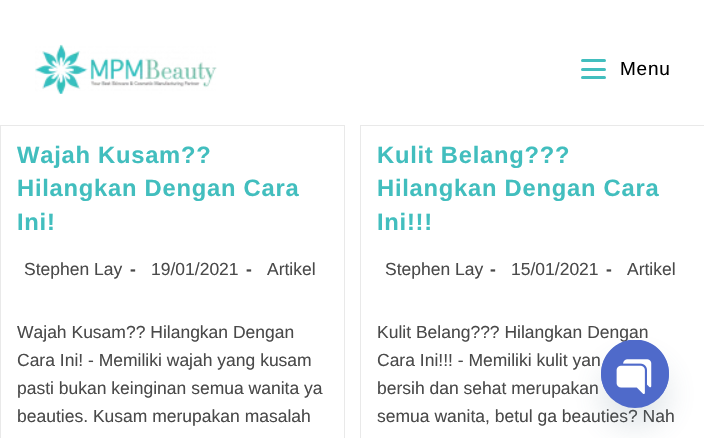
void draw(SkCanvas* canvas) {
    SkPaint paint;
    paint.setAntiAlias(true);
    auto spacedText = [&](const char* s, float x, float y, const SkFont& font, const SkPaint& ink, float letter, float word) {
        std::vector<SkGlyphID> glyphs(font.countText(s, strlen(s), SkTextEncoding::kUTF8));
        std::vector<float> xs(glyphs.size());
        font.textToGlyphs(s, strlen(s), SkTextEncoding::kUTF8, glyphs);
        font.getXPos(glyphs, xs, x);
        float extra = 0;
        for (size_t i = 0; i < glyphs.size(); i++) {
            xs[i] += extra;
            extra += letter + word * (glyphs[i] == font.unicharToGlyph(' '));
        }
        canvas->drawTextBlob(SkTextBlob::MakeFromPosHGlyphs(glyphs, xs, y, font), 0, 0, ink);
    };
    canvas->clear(0xFFFFFFFF);
    canvas->drawImageRect(SkImages::DeferredFromEncodedData(SkData::MakeFromFileName("img1.png")), SkRect::MakeXYWH(35, 44, 182, 50), SkSamplingOptions());
    paint.setColor(0xFF42BEBE);
    canvas->drawRoundRect(SkRect::MakeXYWH(581, 68, 25, 3), 1.5f, 1.5f, paint);
    canvas->drawRoundRect(SkRect::MakeXYWH(581, 59, 25, 3), 1.5f, 1.5f, paint);
    canvas->drawRoundRect(SkRect::MakeXYWH(581, 76, 25, 3), 1.5f, 1.5f, paint);
    SkFont font1(fontMgr->matchFamilyStyle("Liberation Sans", SkFontStyle::Normal()), 19);
    font1.setSubpixel(true);
    paint.setColor(0xFF000000);
    spacedText("Menu", 620, 75, font1, paint, 0.75f, 0);
    paint.setStyle(SkPaint::kStroke_Style);
    paint.setStrokeWidth(1);
    paint.setColor(0xFFE9E9E9);
    canvas->drawRect(SkRect::MakeXYWH(0.5f, 125.5f, 344, 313), paint);
    SkFont font2(fontMgr->matchFamilyStyle("Liberation Sans", SkFontStyle::Bold()), 23.75f);
    font2.setSubpixel(true);
    paint.setStyle(SkPaint::kFill_Style);
    paint.setColor(0xFF42BEBE);
    spacedText("Wajah Kusam?\077", 17, 163, font2, paint, 0.75f, 0);
    spacedText("Hilangkan Dengan Cara", 17, 196, font2, paint, 0.75f, 0);
    spacedText("Ini!", 17, 230, font2, paint, 0.75f, 0);
    SkFont font3(fontMgr->matchFamilyStyle("Liberation Sans", SkFontStyle::Normal()), 17.5f);
    font3.setSubpixel(true);
    paint.setColor(0xFF4A4A4A);
    canvas->drawString("Stephen Lay", 24, 275, font3, paint);
    SkFont font4(fontMgr->matchFamilyStyle("Liberation Sans", SkFontStyle::Bold()), 17.5f);
    font4.setSubpixel(true);
    canvas->drawString("-", 130, 275, font4, paint);
    canvas->drawString("19/01/2021", 151, 275, font3, paint);
    canvas->drawString("-", 246, 275, font4, paint);
    canvas->drawString("Artikel", 267, 275, font3, paint);
    canvas->drawString("Wajah Kusam?\077 Hilangkan Dengan", 17, 338, font3, paint);
    canvas->drawString("Cara Ini! - Memiliki wajah yang kusam", 17, 366, font3, paint);
    canvas->drawString("pasti bukan keinginan semua wanita ya", 17, 394, font3, paint);
    canvas->drawString("beauties. Kusam merupakan masalah", 17, 422, font3, paint);
    paint.setStyle(SkPaint::kStroke_Style);
    paint.setColor(0xFFE9E9E9);
    canvas->drawRect(SkRect::MakeXYWH(360.5f, 125.5f, 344, 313), paint);
    paint.setStyle(SkPaint::kFill_Style);
    paint.setColor(0xFF42BEBE);
    spacedText("Kulit Belang?\077?", 377, 163, font2, paint, 0.75f, 0);
    spacedText("Hilangkan Dengan Cara", 377, 196, font2, paint, 0.75f, 0);
    spacedText("Ini!!!", 377, 230, font2, paint, 0.75f, 0);
    paint.setColor(0xFF4A4A4A);
    canvas->drawString("Stephen Lay", 385, 275, font3, paint);
    canvas->drawString("-", 490, 275, font4, paint);
    canvas->drawString("15/01/2021", 511, 275, font3, paint);
    canvas->drawString("-", 606, 275, font4, paint);
    canvas->drawString("Artikel", 627, 275, font3, paint);
    canvas->drawString("Kulit Belang?\077? Hilangkan Dengan", 377, 338, font3, paint);
    canvas->drawString("Cara Ini!!! - Memiliki kulit yan", 377, 366, font3, paint);
    canvas->drawString("bersih dan sehat merupakan", 377, 394, font3, paint);
    canvas->drawString("semua wanita, betul ga beauties? Nah", 377, 422, font3, paint);
    paint.setColor(0x2949687E);
    paint.setMaskFilter(SkMaskFilter::MakeBlur(kNormal_SkBlurStyle, 15));
    canvas->drawRoundRect(SkRect::MakeXYWH(601, 360, 68, 68), 34, 34, paint);
    paint.setMaskFilter(nullptr);
    paint.setColor(0xFF4F6ACA);
    canvas->drawCircle(635, 374, 34, paint);
    canvas->drawImageRect(SkImages::DeferredFromEncodedData(SkData::MakeFromFileName("img2.png")), SkRect::MakeXYWH(601, 340, 68, 60), SkSamplingOptions());
}
